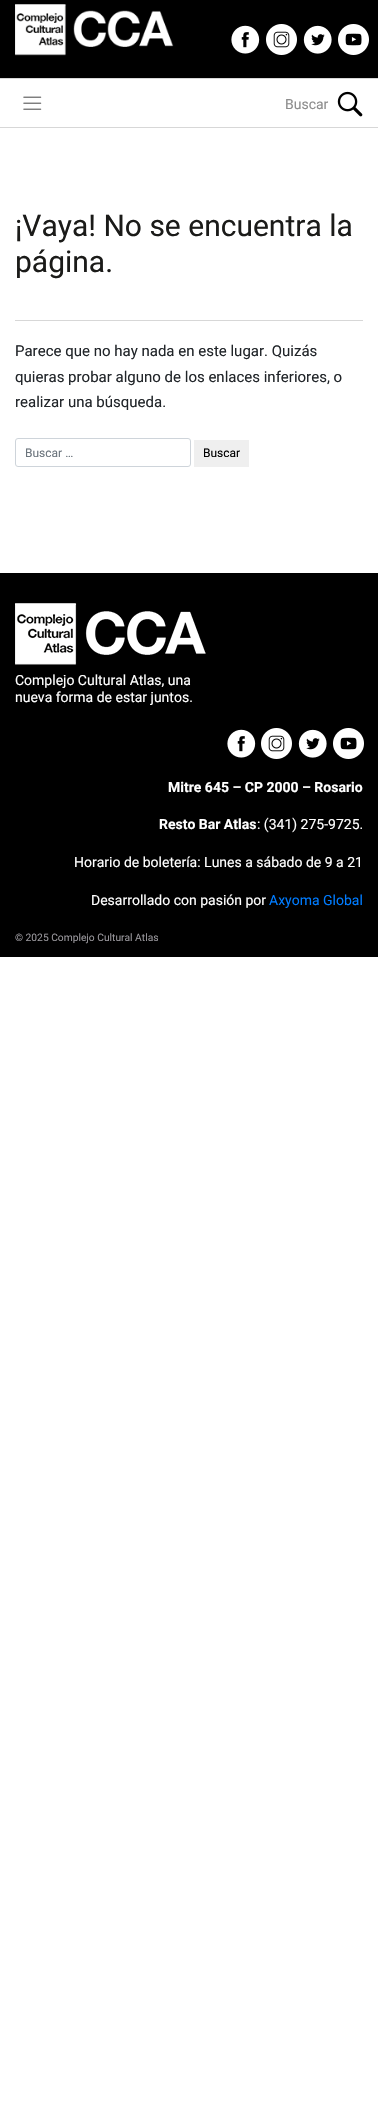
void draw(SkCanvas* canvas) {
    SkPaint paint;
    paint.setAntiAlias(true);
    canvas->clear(0xFFFFFFFF);
    paint.setColor(0xFF000000);
    canvas->drawRect(SkRect::MakeXYWH(0, 0, 378, 78), paint);
    paint.setColor(0xFFD7D7D7);
    canvas->drawRect(SkRect::MakeXYWH(0, 78, 378, 1), paint);
    canvas->drawImageRect(SkImages::DeferredFromEncodedData(SkData::MakeFromFileName("img1.png")), SkRect::MakeXYWH(15, 4, 159, 52), SkSamplingOptions());
    canvas->drawImageRect(SkImages::DeferredFromEncodedData(SkData::MakeFromFileName("img2.png")), SkRect::MakeXYWH(231, 25, 29, 29), SkSamplingOptions());
    canvas->drawImageRect(SkImages::DeferredFromEncodedData(SkData::MakeFromFileName("img3.png")), SkRect::MakeXYWH(266, 24, 31, 31), SkSamplingOptions());
    canvas->drawImageRect(SkImages::DeferredFromEncodedData(SkData::MakeFromFileName("img4.png")), SkRect::MakeXYWH(303, 25, 29, 29), SkSamplingOptions());
    canvas->drawImageRect(SkImages::DeferredFromEncodedData(SkData::MakeFromFileName("img5.png")), SkRect::MakeXYWH(338, 24, 31, 31), SkSamplingOptions());
    canvas->drawRect(SkRect::MakeXYWH(0, 127, 378, 1), paint);
    canvas->drawImageRect(SkImages::DeferredFromEncodedData(SkData::MakeFromFileName("img6.png")), SkRect::MakeXYWH(23, 96, 19, 14), SkSamplingOptions());
    SkFont font1(fontMgr->matchFamilyStyle("Roboto", SkFontStyle::Normal()), 14);
    font1.setSubpixel(true);
    paint.setColor(0xFF8D8D8D);
    canvas->drawString("Buscar", 285, 109, font1, paint);
    canvas->drawImageRect(SkImages::DeferredFromEncodedData(SkData::MakeFromFileName("img7.png")), SkRect::MakeXYWH(337, 91, 26, 26), SkSamplingOptions());
    paint.setColor(0xFFD7D7D7);
    canvas->drawRect(SkRect::MakeXYWH(15, 320, 348, 1), paint);
    SkFont font2(fontMgr->matchFamilyStyle("Roboto", SkFontStyle::Normal()), 30);
    font2.setSubpixel(true);
    paint.setColor(0xFF1B1B19);
    canvas->drawString("¡Vaya! No se encuentra la", 15, 236, font2, paint);
    canvas->drawString("página.", 15, 272, font2, paint);
    SkFont font3(fontMgr->matchFamilyStyle("Roboto", SkFontStyle::Normal()), 15);
    font3.setSubpixel(true);
    paint.setColor(0xFF212529);
    canvas->drawString("Parece que no hay nada en este lugar. Quizás", 15, 356, font3, paint);
    canvas->drawString("quieras probar alguno de los enlaces inferiores, o", 15, 382, font3, paint);
    canvas->drawString("realizar una búsqueda.", 15, 407, font3, paint);
    paint.setStyle(SkPaint::kStroke_Style);
    paint.setStrokeWidth(1);
    paint.setColor(0xFFCED4DA);
    canvas->drawRoundRect(SkRect::MakeXYWH(15.5f, 438.5f, 175, 28), 2.5f, 2.5f, paint);
    SkFont font4(fontMgr->matchFamilyStyle("Roboto", SkFontStyle::Normal()), 12);
    font4.setSubpixel(true);
    paint.setStyle(SkPaint::kFill_Style);
    paint.setColor(0xFF6C757D);
    canvas->drawString("Buscar …", 25, 457, font4, paint);
    paint.setColor(0xFFEFEFEF);
    canvas->drawRect(SkRect::MakeXYWH(194, 440, 55, 27), paint);
    paint.setColor(0xFF000000);
    canvas->drawString("Buscar", 203, 457, font4, paint);
    canvas->drawRect(SkRect::MakeXYWH(0, 573, 378, 384), paint);
    canvas->drawImageRect(SkImages::DeferredFromEncodedData(SkData::MakeFromFileName("img8.png")), SkRect::MakeXYWH(15, 603, 191, 62), SkSamplingOptions());
    paint.setColor(0xFFFFFFFF);
    canvas->drawString("Complejo Cultural Atlas, una", 15, 685, font1, paint);
    canvas->drawString("nueva forma de estar juntos.", 15, 702, font1, paint);
    canvas->drawImageRect(SkImages::DeferredFromEncodedData(SkData::MakeFromFileName("img2.png")), SkRect::MakeXYWH(227, 729, 29, 29), SkSamplingOptions());
    canvas->drawImageRect(SkImages::DeferredFromEncodedData(SkData::MakeFromFileName("img3.png")), SkRect::MakeXYWH(261, 728, 31, 31), SkSamplingOptions());
    canvas->drawImageRect(SkImages::DeferredFromEncodedData(SkData::MakeFromFileName("img4.png")), SkRect::MakeXYWH(298, 729, 29, 29), SkSamplingOptions());
    canvas->drawImageRect(SkImages::DeferredFromEncodedData(SkData::MakeFromFileName("img5.png")), SkRect::MakeXYWH(333, 728, 31, 31), SkSamplingOptions());
    SkFont font5(fontMgr->matchFamilyStyle("Roboto", SkFontStyle::Bold()), 14);
    font5.setSubpixel(true);
    canvas->drawString("Mitre 645 – CP 2000 – Rosario", 168, 792, font5, paint);
    canvas->drawString("Resto Bar Atlas", 159, 829, font5, paint);
    canvas->drawString(": (341) 275-9725.", 257, 829, font1, paint);
    canvas->drawString("Horario de boletería: Lunes a sábado de 9 a 21", 74, 867, font1, paint);
    canvas->drawString("Desarrollado con pasión por", 91, 905, font1, paint);
    paint.setColor(0xFF007BFF);
    canvas->drawString("Axyoma Global", 269, 905, font1, paint);
    SkFont font6(fontMgr->matchFamilyStyle("Roboto", SkFontStyle::Normal()), 10.25f);
    font6.setSubpixel(true);
    paint.setColor(0xFF99979C);
    canvas->drawString("© 2025 Complejo Cultural Atlas", 15, 941, font6, paint);
}
